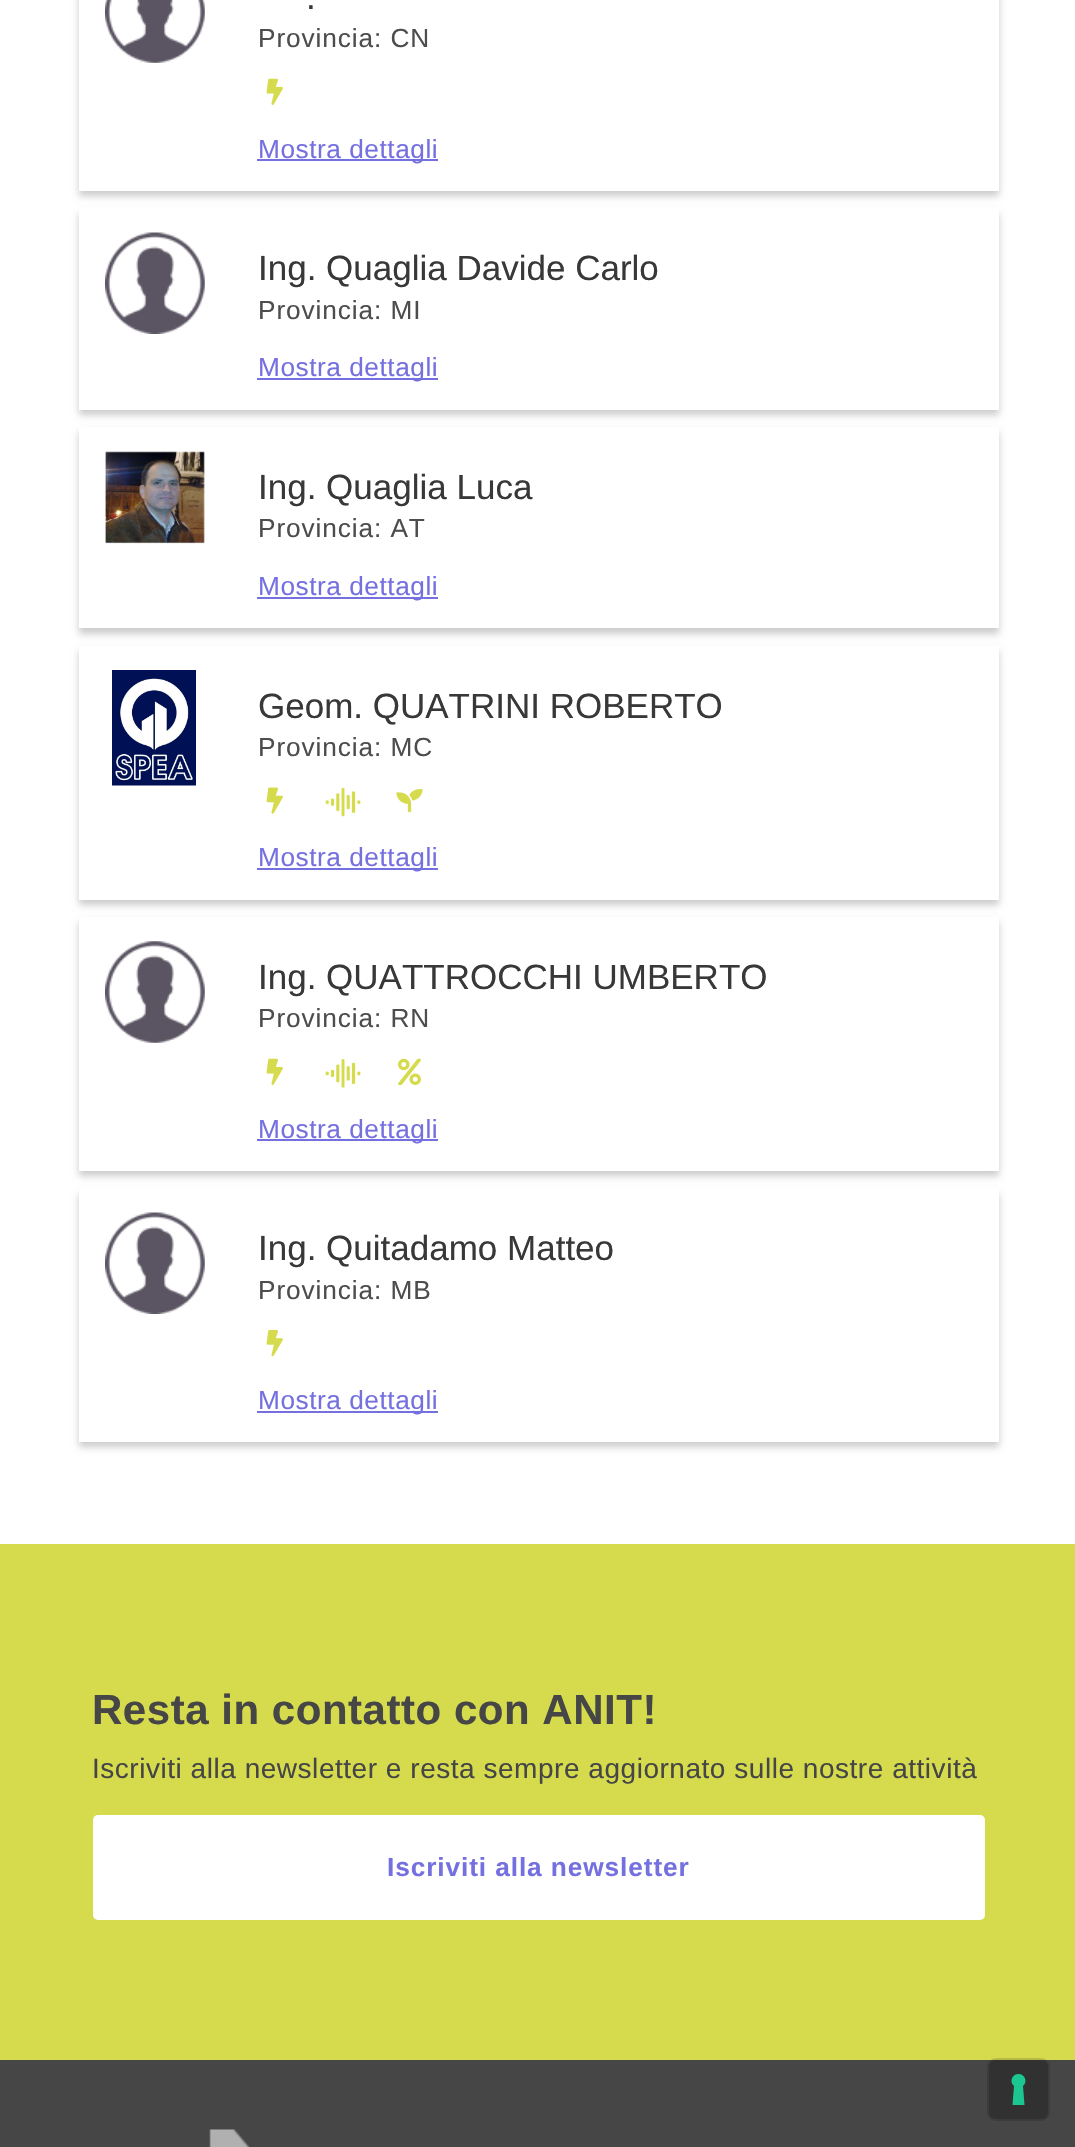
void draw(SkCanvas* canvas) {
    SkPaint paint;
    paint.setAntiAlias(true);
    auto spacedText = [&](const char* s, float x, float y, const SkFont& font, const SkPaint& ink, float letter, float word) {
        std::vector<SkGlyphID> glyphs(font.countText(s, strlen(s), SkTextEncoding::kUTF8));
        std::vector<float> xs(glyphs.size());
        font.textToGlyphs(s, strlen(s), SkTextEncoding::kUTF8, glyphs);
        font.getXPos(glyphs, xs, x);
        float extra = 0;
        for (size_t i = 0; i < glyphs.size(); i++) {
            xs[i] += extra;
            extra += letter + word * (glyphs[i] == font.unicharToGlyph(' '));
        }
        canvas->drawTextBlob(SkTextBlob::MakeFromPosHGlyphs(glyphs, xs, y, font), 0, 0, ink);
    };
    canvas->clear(0xFFFFFFFF);
    canvas->save();
    canvas->clipPath(SkPathBuilder(SkPathFillType::kEvenOdd).moveTo(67, 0).lineTo(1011, 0).lineTo(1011, 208).lineTo(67, 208).close().moveTo(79, -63).lineTo(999, -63).lineTo(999, 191).lineTo(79, 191).close().detach(), true);
    paint.setColor(0x33000000);
    paint.setMaskFilter(SkMaskFilter::MakeBlur(kNormal_SkBlurStyle, 3.5f));
    canvas->drawRect(SkRect::MakeXYWH(79, -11, 920, 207), paint);
    paint.setMaskFilter(nullptr);
    canvas->restore();
    canvas->drawImageRect(SkImages::DeferredFromEncodedData(SkData::MakeFromFileName("img1.png")), SkRect::MakeXYWH(105, 0, 100, 63), SkSamplingOptions());
    SkFont font1(fontMgr->matchFamilyStyle("Liberation Sans", SkFontStyle::Normal()), 35);
    font1.setSubpixel(true);
    paint.setColor(0xFF383838);
    canvas->drawString(".", 306, 9, font1, paint);
    SkFont font2(fontMgr->matchFamilyStyle("Liberation Sans", SkFontStyle::Normal()), 26.25f);
    font2.setSubpixel(true);
    paint.setColor(0xFF4D4D4D);
    spacedText("Provincia: CN", 258, 47, font2, paint, 0.9f, 0);
    canvas->drawImageRect(SkImages::DeferredFromEncodedData(SkData::MakeFromFileName("img2.png")), SkRect::MakeXYWH(266, 78, 17, 27), SkSamplingOptions());
    paint.setColor(0xFF7570E0);
    canvas->drawRect(SkRect::MakeXYWH(257, 159, 181, 2), paint);
    spacedText("Mostra dettagli", 258, 158, font2, paint, 0.53f, 0);
    canvas->save();
    canvas->clipPath(SkPathBuilder(SkPathFillType::kEvenOdd).moveTo(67, 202).lineTo(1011, 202).lineTo(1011, 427).lineTo(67, 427).close().moveTo(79, 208).lineTo(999, 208).lineTo(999, 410).lineTo(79, 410).close().detach(), true);
    paint.setColor(0x33000000);
    paint.setMaskFilter(SkMaskFilter::MakeBlur(kNormal_SkBlurStyle, 3.5f));
    canvas->drawRect(SkRect::MakeXYWH(79, 214, 920, 201), paint);
    paint.setMaskFilter(nullptr);
    canvas->restore();
    canvas->drawImageRect(SkImages::DeferredFromEncodedData(SkData::MakeFromFileName("img3.png")), SkRect::MakeXYWH(105, 232, 100, 102), SkSamplingOptions());
    paint.setColor(0xFF383838);
    canvas->drawString("Ing. Quaglia Davide Carlo", 258, 280, font1, paint);
    paint.setColor(0xFF4D4D4D);
    spacedText("Provincia: MI", 258, 319, font2, paint, 0.9f, 0);
    paint.setColor(0xFF7570E0);
    canvas->drawRect(SkRect::MakeXYWH(257, 378, 181, 2), paint);
    spacedText("Mostra dettagli", 258, 376, font2, paint, 0.53f, 0);
    canvas->save();
    canvas->clipPath(SkPathBuilder(SkPathFillType::kEvenOdd).moveTo(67, 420).lineTo(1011, 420).lineTo(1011, 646).lineTo(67, 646).close().moveTo(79, 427).lineTo(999, 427).lineTo(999, 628).lineTo(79, 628).close().detach(), true);
    paint.setColor(0x33000000);
    paint.setMaskFilter(SkMaskFilter::MakeBlur(kNormal_SkBlurStyle, 3.5f));
    canvas->drawRect(SkRect::MakeXYWH(79, 432, 920, 202), paint);
    paint.setMaskFilter(nullptr);
    canvas->restore();
    canvas->drawImageRect(SkImages::DeferredFromEncodedData(SkData::MakeFromFileName("img4.png")), SkRect::MakeXYWH(105, 451, 100, 93), SkSamplingOptions());
    paint.setColor(0xFF383838);
    canvas->drawString("Ing. Quaglia Luca", 258, 499, font1, paint);
    paint.setColor(0xFF4D4D4D);
    spacedText("Provincia: AT", 258, 537, font2, paint, 0.9f, 0);
    paint.setColor(0xFF7570E0);
    canvas->drawRect(SkRect::MakeXYWH(257, 597, 181, 2), paint);
    spacedText("Mostra dettagli", 258, 595, font2, paint, 0.53f, 0);
    canvas->save();
    canvas->clipPath(SkPathBuilder(SkPathFillType::kEvenOdd).moveTo(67, 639).lineTo(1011, 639).lineTo(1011, 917).lineTo(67, 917).close().moveTo(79, 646).lineTo(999, 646).lineTo(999, 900).lineTo(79, 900).close().detach(), true);
    paint.setColor(0x33000000);
    paint.setMaskFilter(SkMaskFilter::MakeBlur(kNormal_SkBlurStyle, 3.5f));
    canvas->drawRect(SkRect::MakeXYWH(79, 651, 920, 254), paint);
    paint.setMaskFilter(nullptr);
    canvas->restore();
    canvas->drawImageRect(SkImages::DeferredFromEncodedData(SkData::MakeFromFileName("img5.png")), SkRect::MakeXYWH(112, 670, 84, 116), SkSamplingOptions());
    paint.setColor(0xFF383838);
    canvas->drawString("Geom. QUATRINI ROBERTO", 258, 718, font1, paint);
    paint.setColor(0xFF4D4D4D);
    spacedText("Provincia: MC", 258, 756, font2, paint, 0.9f, 0);
    canvas->drawImageRect(SkImages::DeferredFromEncodedData(SkData::MakeFromFileName("img6.png")), SkRect::MakeXYWH(266, 787, 17, 27), SkSamplingOptions());
    canvas->drawImageRect(SkImages::DeferredFromEncodedData(SkData::MakeFromFileName("img7.png")), SkRect::MakeXYWH(325, 788, 36, 29), SkSamplingOptions());
    canvas->drawImageRect(SkImages::DeferredFromEncodedData(SkData::MakeFromFileName("img8.png")), SkRect::MakeXYWH(396, 789, 27, 24), SkSamplingOptions());
    paint.setColor(0xFF7570E0);
    canvas->drawRect(SkRect::MakeXYWH(257, 868, 181, 2), paint);
    spacedText("Mostra dettagli", 258, 866, font2, paint, 0.53f, 0);
    canvas->save();
    canvas->clipPath(SkPathBuilder(SkPathFillType::kEvenOdd).moveTo(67, 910).lineTo(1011, 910).lineTo(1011, 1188).lineTo(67, 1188).close().moveTo(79, 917).lineTo(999, 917).lineTo(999, 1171).lineTo(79, 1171).close().detach(), true);
    paint.setColor(0x33000000);
    paint.setMaskFilter(SkMaskFilter::MakeBlur(kNormal_SkBlurStyle, 3.5f));
    canvas->drawRect(SkRect::MakeXYWH(79, 922, 920, 254), paint);
    paint.setMaskFilter(nullptr);
    canvas->restore();
    canvas->drawImageRect(SkImages::DeferredFromEncodedData(SkData::MakeFromFileName("img9.png")), SkRect::MakeXYWH(105, 941, 100, 102), SkSamplingOptions());
    paint.setColor(0xFF383838);
    canvas->drawString("Ing. QUATTROCCHI UMBERTO", 258, 989, font1, paint);
    paint.setColor(0xFF4D4D4D);
    spacedText("Provincia: RN", 258, 1027, font2, paint, 0.9f, 0);
    canvas->drawImageRect(SkImages::DeferredFromEncodedData(SkData::MakeFromFileName("img2.png")), SkRect::MakeXYWH(266, 1058, 17, 27), SkSamplingOptions());
    canvas->drawImageRect(SkImages::DeferredFromEncodedData(SkData::MakeFromFileName("img10.png")), SkRect::MakeXYWH(325, 1059, 36, 29), SkSamplingOptions());
    canvas->drawImageRect(SkImages::DeferredFromEncodedData(SkData::MakeFromFileName("img11.png")), SkRect::MakeXYWH(398, 1058, 23, 27), SkSamplingOptions());
    paint.setColor(0xFF7570E0);
    canvas->drawRect(SkRect::MakeXYWH(257, 1139, 181, 2), paint);
    spacedText("Mostra dettagli", 258, 1138, font2, paint, 0.53f, 0);
    canvas->save();
    canvas->clipPath(SkPathBuilder(SkPathFillType::kEvenOdd).moveTo(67, 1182).lineTo(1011, 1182).lineTo(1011, 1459).lineTo(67, 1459).close().moveTo(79, 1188).lineTo(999, 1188).lineTo(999, 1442).lineTo(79, 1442).close().detach(), true);
    paint.setColor(0x33000000);
    paint.setMaskFilter(SkMaskFilter::MakeBlur(kNormal_SkBlurStyle, 3.5f));
    canvas->drawRect(SkRect::MakeXYWH(79, 1194, 920, 253), paint);
    paint.setMaskFilter(nullptr);
    canvas->restore();
    canvas->drawImageRect(SkImages::DeferredFromEncodedData(SkData::MakeFromFileName("img3.png")), SkRect::MakeXYWH(105, 1212, 100, 102), SkSamplingOptions());
    paint.setColor(0xFF383838);
    canvas->drawString("Ing. Quitadamo Matteo", 258, 1260, font1, paint);
    paint.setColor(0xFF4D4D4D);
    spacedText("Provincia: MB", 258, 1299, font2, paint, 0.9f, 0);
    canvas->drawImageRect(SkImages::DeferredFromEncodedData(SkData::MakeFromFileName("img12.png")), SkRect::MakeXYWH(266, 1330, 17, 27), SkSamplingOptions());
    paint.setColor(0xFF7570E0);
    canvas->drawRect(SkRect::MakeXYWH(257, 1411, 181, 2), paint);
    spacedText("Mostra dettagli", 258, 1409, font2, paint, 0.53f, 0);
    paint.setColor(0xFFD5DB4D);
    canvas->drawRect(SkRect::MakeXYWH(0, 1544, 1075, 516), paint);
    SkFont font3(fontMgr->matchFamilyStyle("Liberation Sans", SkFontStyle::Bold()), 42);
    font3.setSubpixel(true);
    paint.setColor(0xFF464646);
    spacedText("Resta in contatto con ANIT!", 92, 1724, font3, paint, 0.53f, 0);
    SkFont font4(fontMgr->matchFamilyStyle("Liberation Sans", SkFontStyle::Normal()), 28);
    font4.setSubpixel(true);
    spacedText("Iscriviti alla newsletter e resta sempre aggiornato sulle nostre attività", 92, 1778, font4, paint, 0.53f, 0);
    paint.setColor(0xFFFFFFFF);
    canvas->drawRoundRect(SkRect::MakeXYWH(93, 1815, 892, 105), 5, 5, paint);
    SkFont font5(fontMgr->matchFamilyStyle("Liberation Sans", SkFontStyle::Bold()), 26.25f);
    font5.setSubpixel(true);
    paint.setColor(0xFF7570E0);
    spacedText("Iscriviti alla newsletter", 387, 1876, font5, paint, 0.9f, 0);
    paint.setColor(0xFF464646);
    canvas->drawRect(SkRect::MakeXYWH(0, 2060, 1075, 87), paint);
    paint.setStyle(SkPaint::kStroke_Style);
    paint.setStrokeWidth(2);
    paint.setColor(0x26000000);
    canvas->drawRoundRect(SkRect::MakeXYWH(988, 2059, 61, 61), 8, 8, paint);
    paint.setStyle(SkPaint::kFill_Style);
    paint.setColor(0x4F000000);
    canvas->drawRoundRect(SkRect::MakeXYWH(989, 2060, 59, 59), 7, 7, paint);
    paint.setColor(0xFF1CC691);
    canvas->drawPath(SkPathBuilder(SkPathFillType::kEvenOdd).moveTo(1018.5f, 2074).cubicTo(1025, 2074, 1028, 2082, 1023, 2086).lineTo(1024.5f, 2105).lineTo(1012.5f, 2105).lineTo(1014, 2086).cubicTo(1009, 2082, 1012, 2074, 1018.5f, 2074).close().detach(), paint);
    canvas->drawImageRect(SkImages::DeferredFromEncodedData(SkData::MakeFromFileName("img13.png")), SkRect::MakeXYWH(209, 2129, 41, 18), SkSamplingOptions());
}
